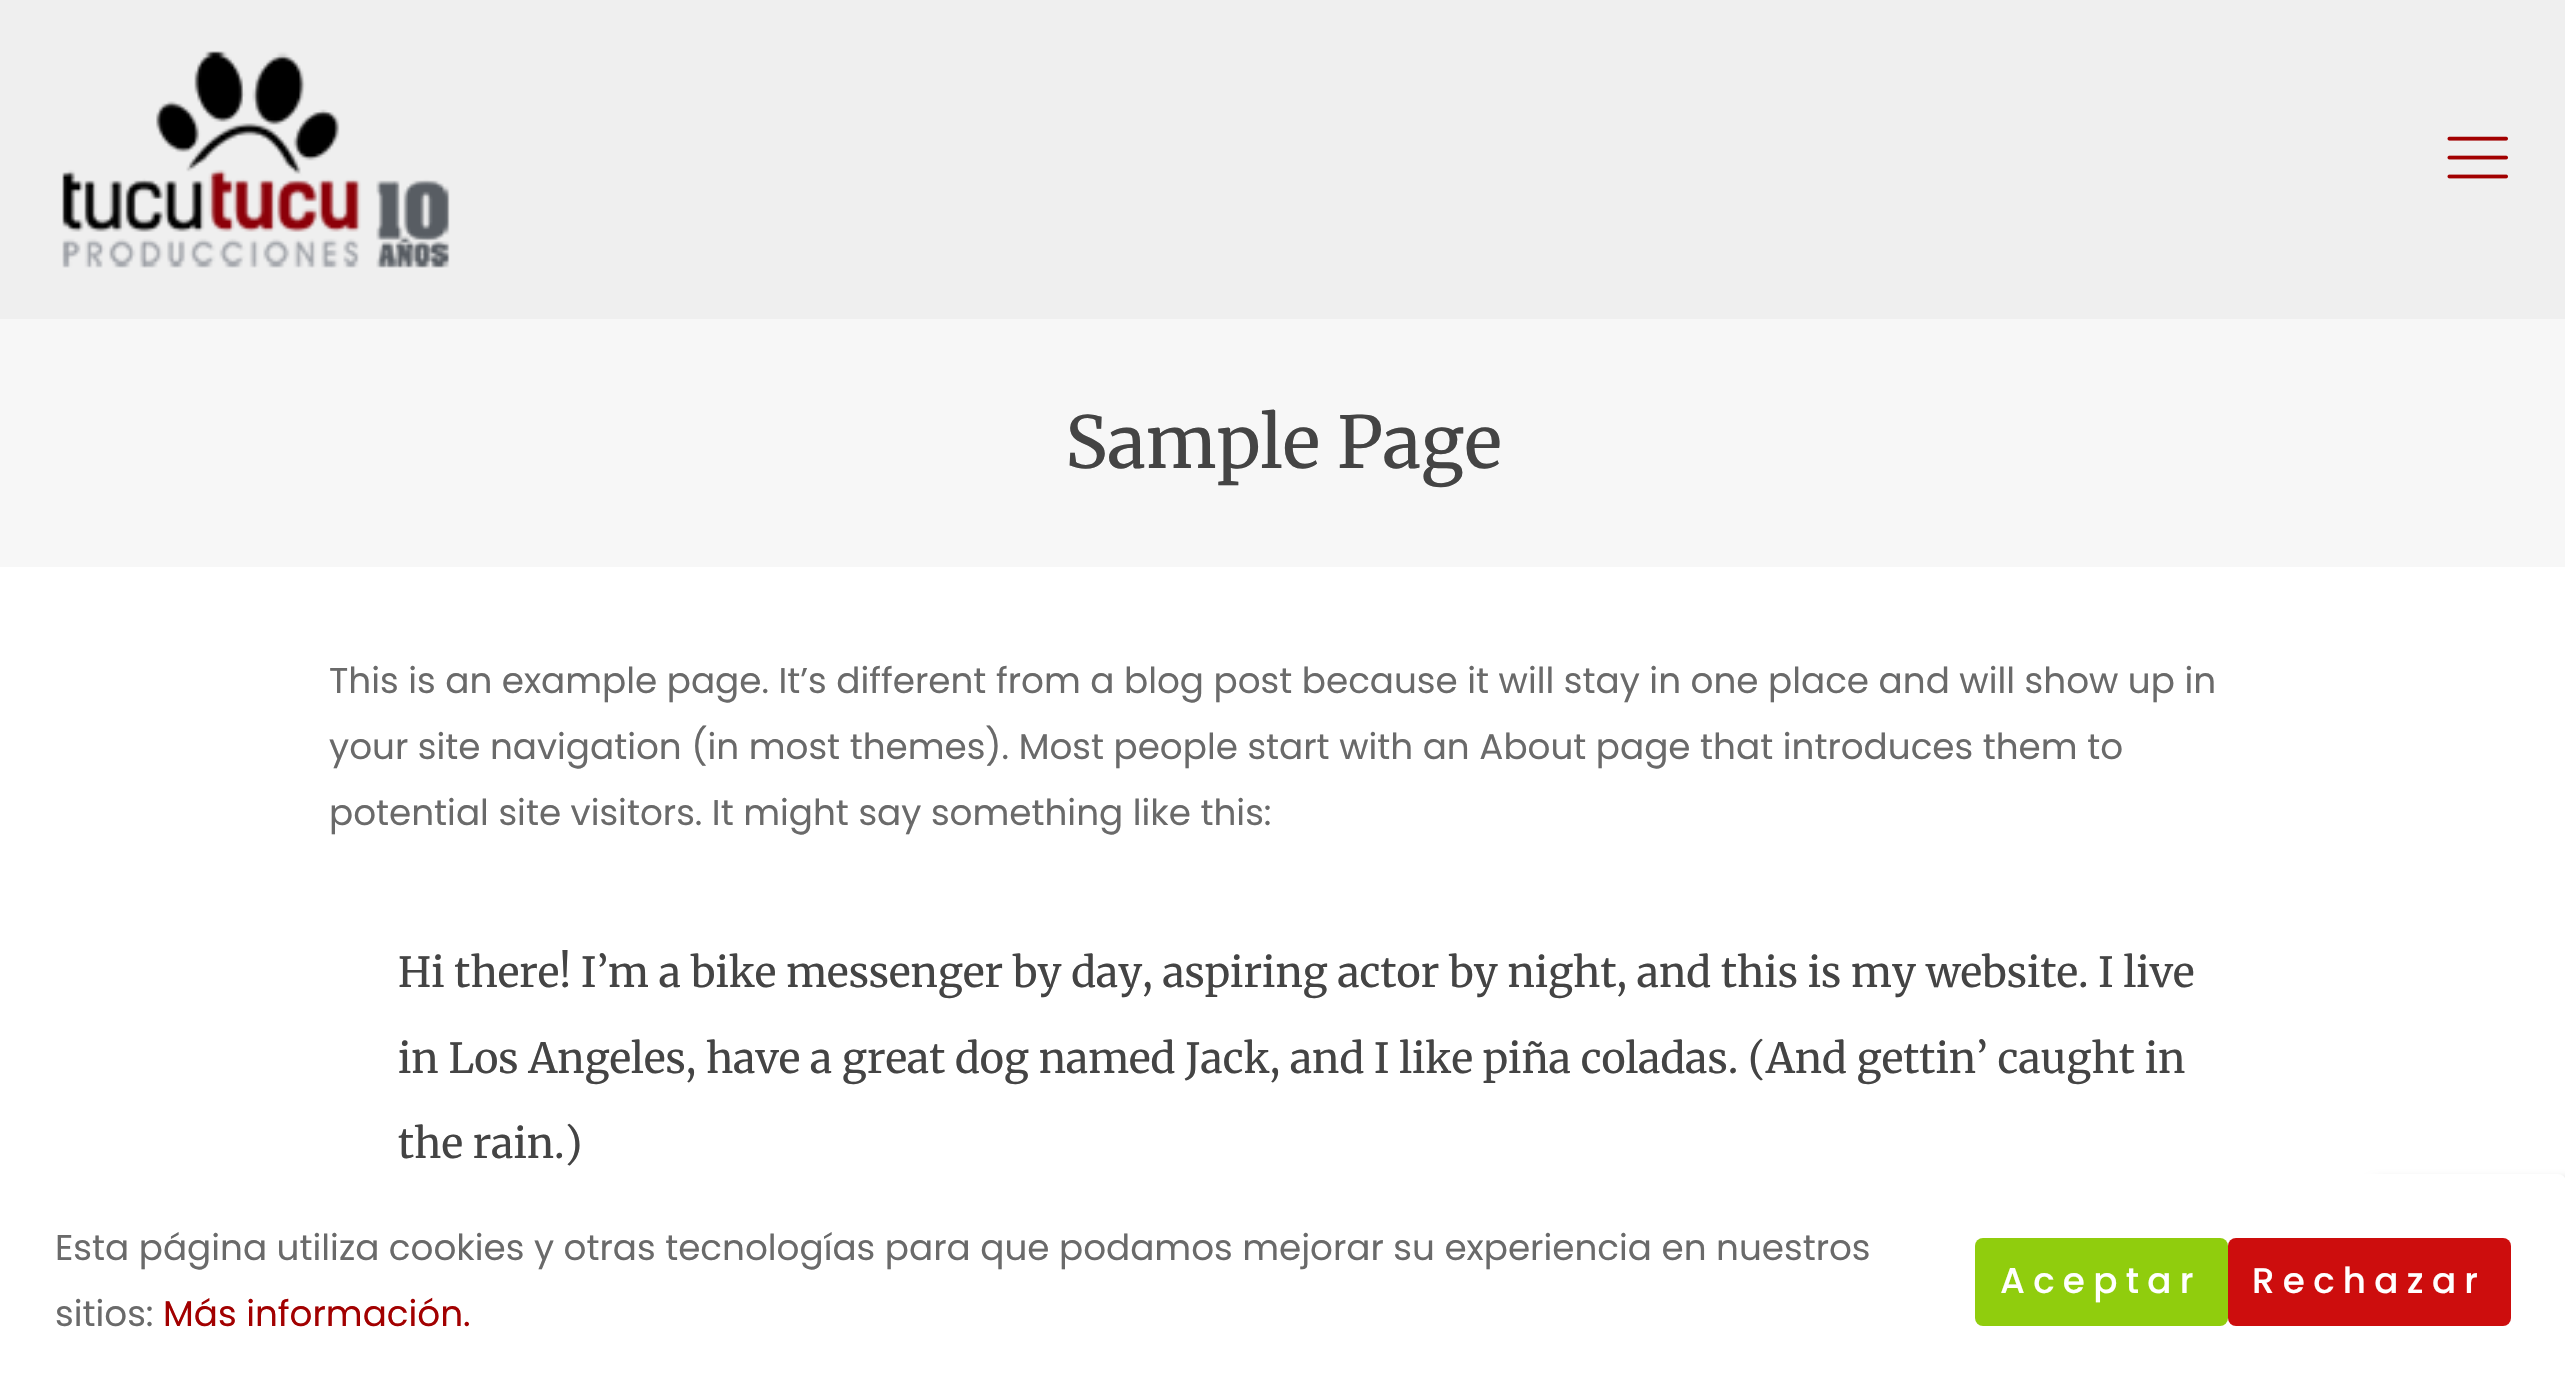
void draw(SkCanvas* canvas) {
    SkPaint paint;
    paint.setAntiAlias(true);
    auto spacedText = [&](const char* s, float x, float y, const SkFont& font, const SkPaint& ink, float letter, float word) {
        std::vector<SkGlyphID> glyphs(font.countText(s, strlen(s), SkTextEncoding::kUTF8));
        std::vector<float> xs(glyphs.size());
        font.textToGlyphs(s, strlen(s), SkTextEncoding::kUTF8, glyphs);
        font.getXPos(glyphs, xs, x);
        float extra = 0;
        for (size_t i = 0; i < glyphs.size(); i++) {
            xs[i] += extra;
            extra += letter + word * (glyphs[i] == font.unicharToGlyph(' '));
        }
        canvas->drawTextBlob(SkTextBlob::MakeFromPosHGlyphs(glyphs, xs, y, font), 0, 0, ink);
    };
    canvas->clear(0xFFFFFFFF);
    paint.setColor(0xFFEFEFEF);
    canvas->drawRect(SkRect::MakeXYWH(0, 0, 2565, 319), paint);
    canvas->drawImageRect(SkImages::DeferredFromEncodedData(SkData::MakeFromFileName("img1.png")), SkRect::MakeXYWH(62, 51, 388, 217), SkSamplingOptions());
    canvas->drawImageRect(SkImages::DeferredFromEncodedData(SkData::MakeFromFileName("img2.png")), SkRect::MakeXYWH(2447, 136, 61, 43), SkSamplingOptions());
    paint.setColor(0xFFF7F7F7);
    canvas->drawRect(SkRect::MakeXYWH(0, 319, 2565, 248), paint);
    SkFont font1(fontMgr->matchFamilyStyle("Merriweather", SkFontStyle::Normal()), 71.5f);
    font1.setSubpixel(true);
    paint.setColor(0xFF444444);
    canvas->drawString("Sample Page", 1065, 468, font1, paint);
    SkFont font2(fontMgr->matchFamilyStyle("Poppins", SkFontStyle::Normal()), 35.75f);
    font2.setSubpixel(true);
    paint.setColor(0xFF6A6A6A);
    canvas->drawString("This is an example page. It’s different from a blog post because it will stay in one place and will show up in", 329, 693, font2, paint);
    canvas->drawString("your site navigation (in most themes). Most people start with an About page that introduces them to", 329, 759, font2, paint);
    canvas->drawString("potential site visitors. It might say something like this:", 329, 825, font2, paint);
    SkFont font3(fontMgr->matchFamilyStyle("Merriweather", SkFontStyle::Normal()), 41.25f);
    font3.setSubpixel(true);
    paint.setColor(0xFF444444);
    canvas->drawString("Hi there! I’m a bike messenger by day, aspiring actor by night, and this is my website. I live", 398, 987, font3, paint);
    canvas->drawString("in Los Angeles, have a great dog named Jack, and I like piña coladas. (And gettin’ caught in", 398, 1073, font3, paint);
    canvas->drawString("the rain.)", 398, 1158, font3, paint);
    paint.setColor(0xFF808080);
    paint.setMaskFilter(SkMaskFilter::MakeBlur(kNormal_SkBlurStyle, 7));
    canvas->drawRoundRect(SkRect::MakeXYWH(2373, 1185, 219, 165), 6, 6, paint);
    paint.setMaskFilter(nullptr);
    paint.setColor(0xFFFFFFFF);
    canvas->drawRoundRect(SkRect::MakeXYWH(0, 1174, 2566, 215), 8, 8, paint);
    paint.setColor(0xFF6A6A6A);
    canvas->drawString("Esta página utiliza cookies y otras tecnologías para que podamos mejorar su experiencia en nuestros", 55, 1260, font2, paint);
    canvas->drawString("sitios:", 55, 1326, font2, paint);
    paint.setColor(0xFFA20000);
    canvas->drawString("Más información.", 163, 1326, font2, paint);
    paint.setColor(0xFF90CD0D);
    canvas->drawRoundRect(SkRect::MakeXYWH(1975, 1238, 253, 88), 8, 8, paint);
    SkFont font4(fontMgr->matchFamilyStyle("Poppins", SkFontStyle(500, SkFontStyle::kNormal_Width, SkFontStyle::kUpright_Slant)), 35.75f);
    font4.setSubpixel(true);
    paint.setColor(0xFFFFFFFF);
    spacedText("Aceptar", 2000, 1293, font4, paint, 8.25f, 0);
    paint.setColor(0xFFCD0D0D);
    canvas->drawRoundRect(SkRect::MakeXYWH(2228, 1238, 283, 88), 8, 8, paint);
    paint.setColor(0xFFFFFFFF);
    spacedText("Rechazar", 2252, 1293, font4, paint, 8.25f, 0);
}
